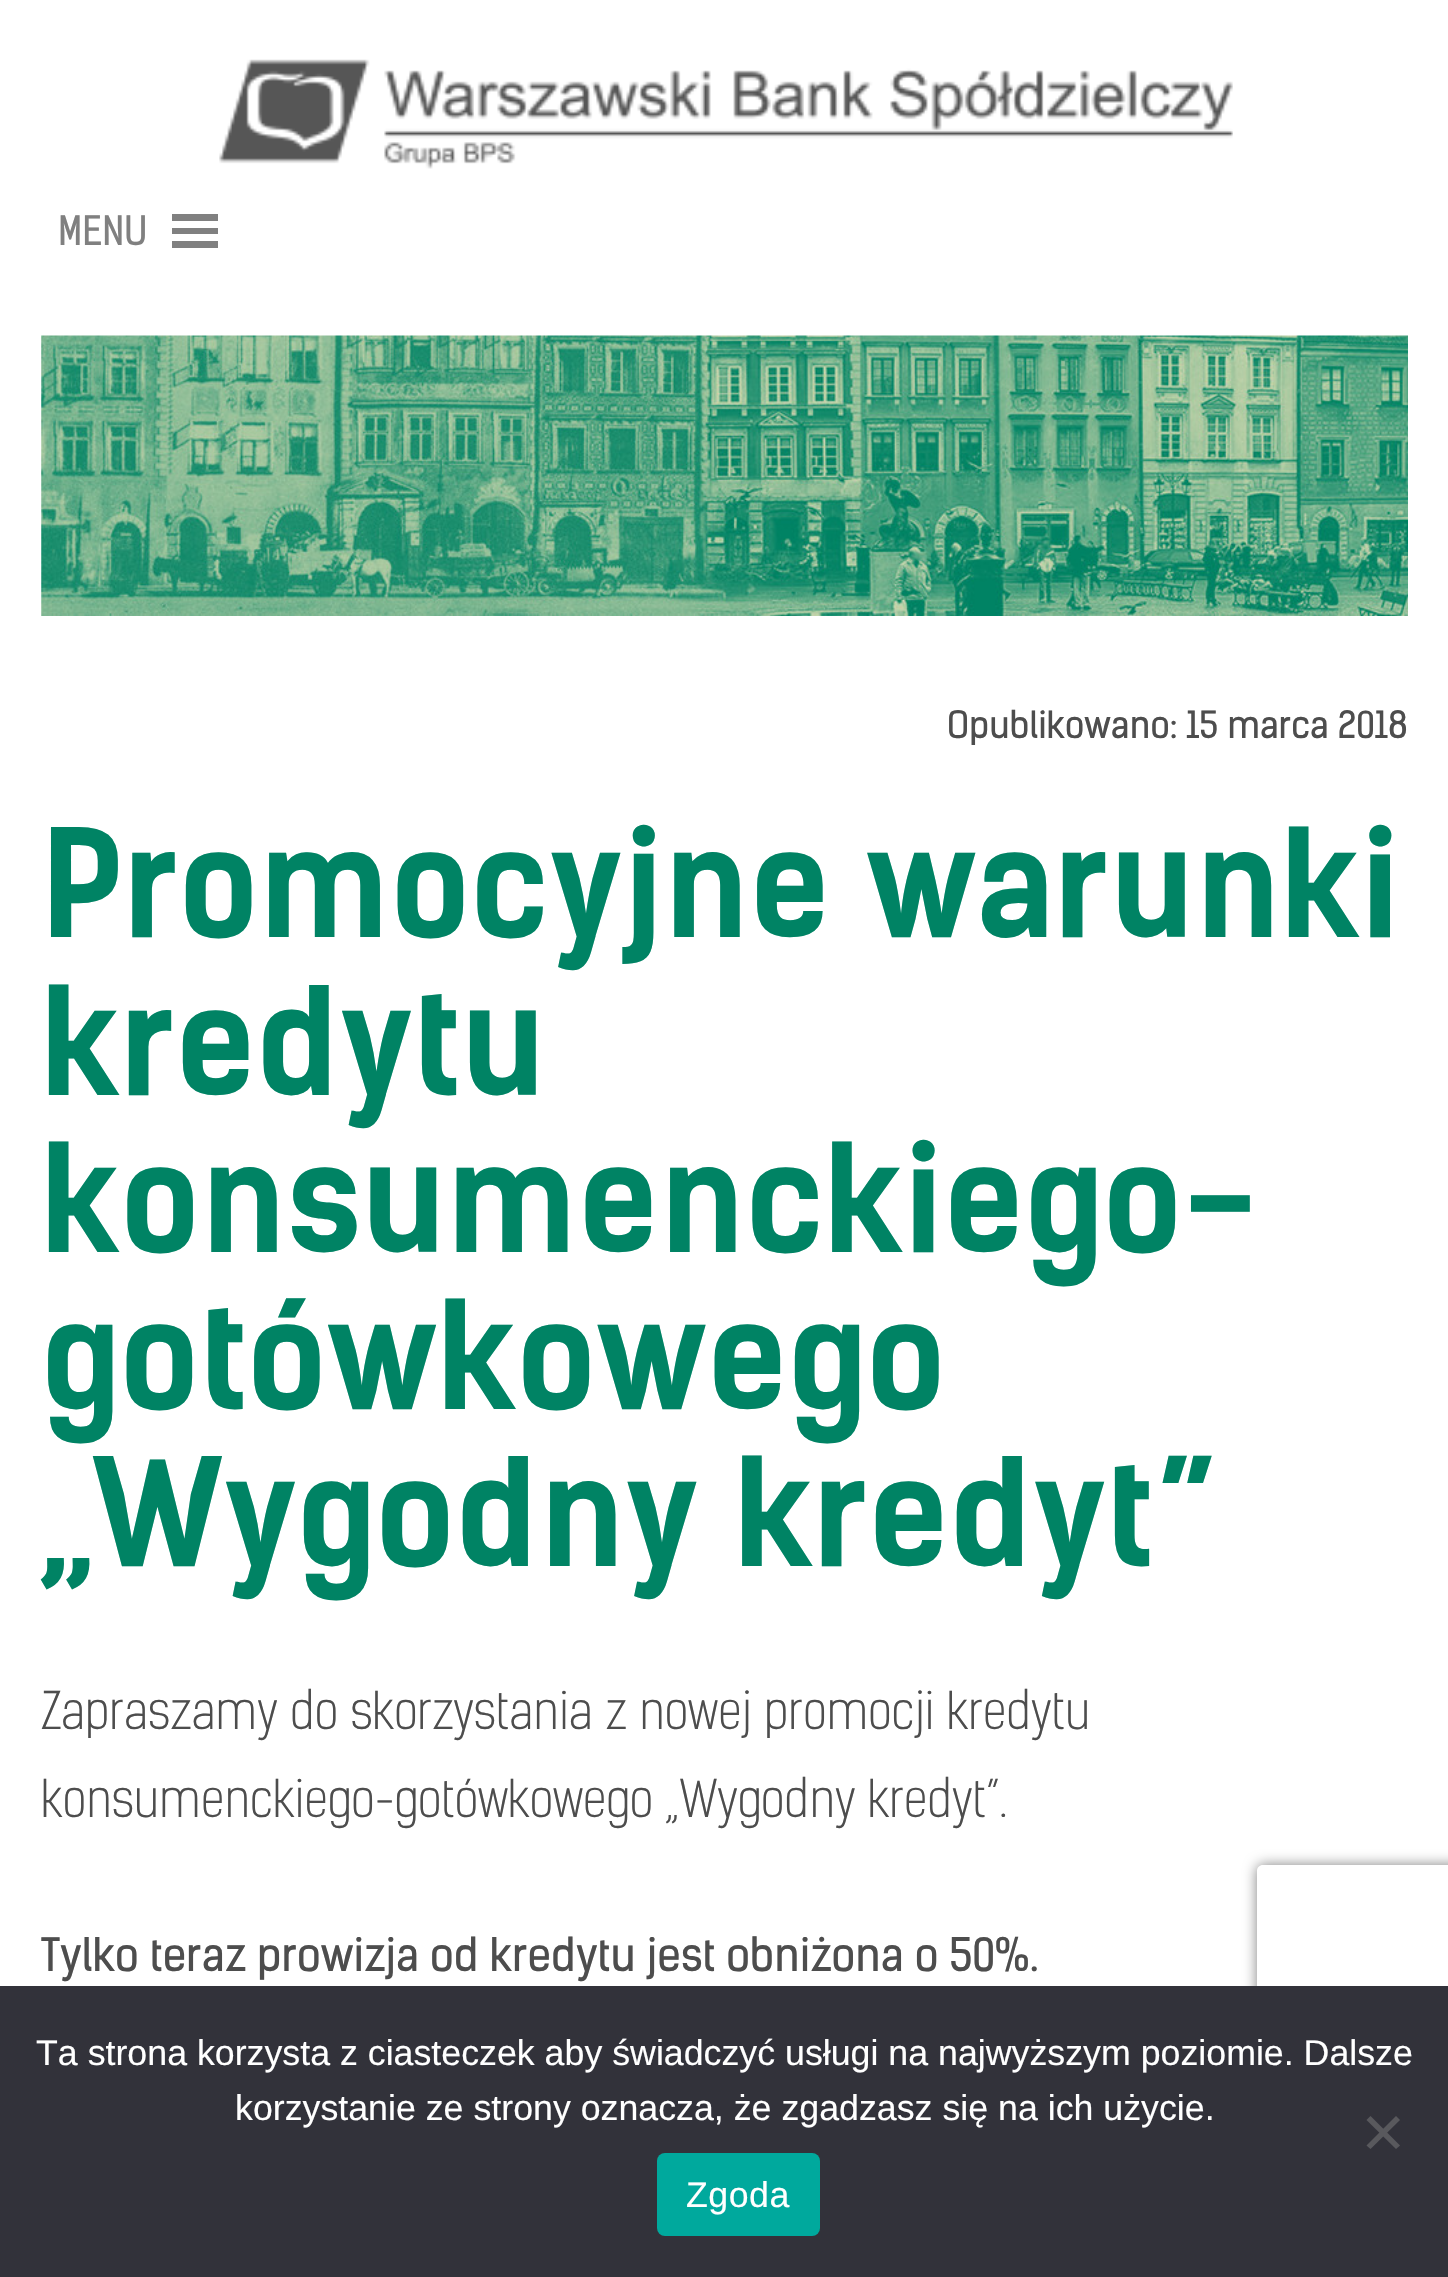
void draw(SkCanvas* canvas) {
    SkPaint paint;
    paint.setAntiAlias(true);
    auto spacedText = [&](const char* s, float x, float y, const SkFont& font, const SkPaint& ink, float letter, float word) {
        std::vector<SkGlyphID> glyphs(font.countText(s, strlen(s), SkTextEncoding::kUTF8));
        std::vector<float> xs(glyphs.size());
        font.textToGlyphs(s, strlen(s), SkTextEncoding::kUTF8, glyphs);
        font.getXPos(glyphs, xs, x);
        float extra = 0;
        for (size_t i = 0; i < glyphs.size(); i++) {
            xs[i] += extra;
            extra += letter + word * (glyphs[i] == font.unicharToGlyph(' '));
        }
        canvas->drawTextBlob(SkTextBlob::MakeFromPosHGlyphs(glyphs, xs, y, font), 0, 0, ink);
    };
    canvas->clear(0xFFFFFFFF);
    canvas->drawImageRect(SkImages::DeferredFromEncodedData(SkData::MakeFromFileName("img1.png")), SkRect::MakeXYWH(219, 59, 1014, 110), SkSamplingOptions());
    SkFont font1(fontMgr->matchFamilyStyle("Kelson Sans", SkFontStyle::Normal()), 38.5f);
    font1.setSubpixel(true);
    paint.setColor(0xFF808080);
    canvas->drawString("MENU", 58, 245, font1, paint);
    canvas->drawPath(SkPathBuilder().moveTo(172, 248).lineTo(218, 248).lineTo(218, 241).lineTo(172, 241).close().moveTo(172, 214).lineTo(172, 221).lineTo(218, 221).lineTo(218, 214).close().moveTo(172, 234).lineTo(218, 234).lineTo(218, 228).lineTo(172, 228).close().detach(), paint);
    canvas->drawImageRect(SkImages::DeferredFromEncodedData(SkData::MakeFromFileName("img2.png")), SkRect::MakeXYWH(41, 335, 1367, 281), SkSamplingOptions());
    SkFont font2(fontMgr->matchFamilyStyle("Kelson Sans", SkFontStyle::Normal()), 35.75f);
    font2.setSubpixel(true);
    paint.setColor(0xFF4D4D4D);
    canvas->drawString("Opublikowano: 15 marca 2018", 947, 738, font2, paint);
    SkFont font3(fontMgr->matchFamilyStyle("Kelson Sans", SkFontStyle::Bold()), 143);
    font3.setSubpixel(true);
    paint.setColor(0xFF008364);
    canvas->drawString("Promocyjne warunki", 41, 937, font3, paint);
    canvas->drawString("kredytu", 41, 1095, font3, paint);
    canvas->drawString("konsumenckiego-", 41, 1252, font3, paint);
    canvas->drawString("gotówkowego", 41, 1409, font3, paint);
    canvas->drawString("„Wygodny kredyt”", 41, 1566, font3, paint);
    SkFont font4(fontMgr->matchFamilyStyle("Kelson Sans", SkFontStyle(300, SkFontStyle::kNormal_Width, SkFontStyle::kUpright_Slant)), 49.5f);
    font4.setSubpixel(true);
    paint.setColor(0xFF4D4D4D);
    canvas->drawString("Zapraszamy do skorzystania z nowej promocji kredytu", 41, 1729, font4, paint);
    canvas->drawString("konsumenckiego-gotówkowego „Wygodny kredyt”.", 41, 1817, font4, paint);
    SkFont font5(fontMgr->matchFamilyStyle("Kelson Sans", SkFontStyle::Normal()), 44);
    font5.setSubpixel(true);
    canvas->drawString("Tylko teraz prowizja od kredytu jest obniżona o 50%.", 41, 1971, font5, paint);
    canvas->save();
    canvas->clipPath(SkPathBuilder(SkPathFillType::kEvenOdd).moveTo(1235, 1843).lineTo(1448, 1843).lineTo(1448, 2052).lineTo(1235, 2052).close().moveTo(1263, 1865).lineTo(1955, 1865).cubicTo(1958.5f, 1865, 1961, 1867.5f, 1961, 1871).lineTo(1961, 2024).cubicTo(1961, 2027.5f, 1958.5f, 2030, 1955, 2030).lineTo(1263, 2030).cubicTo(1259.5f, 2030, 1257, 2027.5f, 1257, 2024).lineTo(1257, 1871).cubicTo(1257, 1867.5f, 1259.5f, 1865, 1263, 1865).close().detach(), true);
    paint.setColor(0xFF808080);
    paint.setMaskFilter(SkMaskFilter::MakeBlur(kNormal_SkBlurStyle, 7));
    canvas->drawRoundRect(SkRect::MakeXYWH(1257, 1865, 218, 165), 6, 6, paint);
    paint.setMaskFilter(nullptr);
    canvas->restore();
    paint.setColor(0xFF32323A);
    canvas->drawRect(SkRect::MakeXYWH(0, 1986, 1448, 291), paint);
    SkFont font6(fontMgr->matchFamilyStyle("Liberation Sans", SkFontStyle::Normal()), 35.75f);
    font6.setSubpixel(true);
    paint.setColor(0xFFFFFFFF);
    canvas->drawString("Ta strona korzysta z ciasteczek aby świadczyć usługi na najwyższym poziomie. Dalsze", 36, 2065, font6, paint);
    canvas->drawString("korzystanie ze strony oznacza, że zgadzasz się na ich użycie.", 235, 2120, font6, paint);
    paint.setColor(0xFF59595D);
    canvas->drawPath(SkPathBuilder().moveTo(1396, 2116).lineTo(1400, 2120).lineTo(1370.5f, 2149).lineTo(1366.5f, 2145.5f).close().detach(), paint);
    canvas->drawPath(SkPathBuilder().moveTo(1366.5f, 2120).lineTo(1370.5f, 2116).lineTo(1400, 2145.5f).lineTo(1396, 2149).close().detach(), paint);
    paint.setColor(0xFF00A99D);
    canvas->drawRoundRect(SkRect::MakeXYWH(657, 2153, 163, 83), 8, 8, paint);
    paint.setColor(0xFFFFFFFF);
    spacedText("Zgoda", 686, 2207, font6, paint, 0.5f, 0);
}
